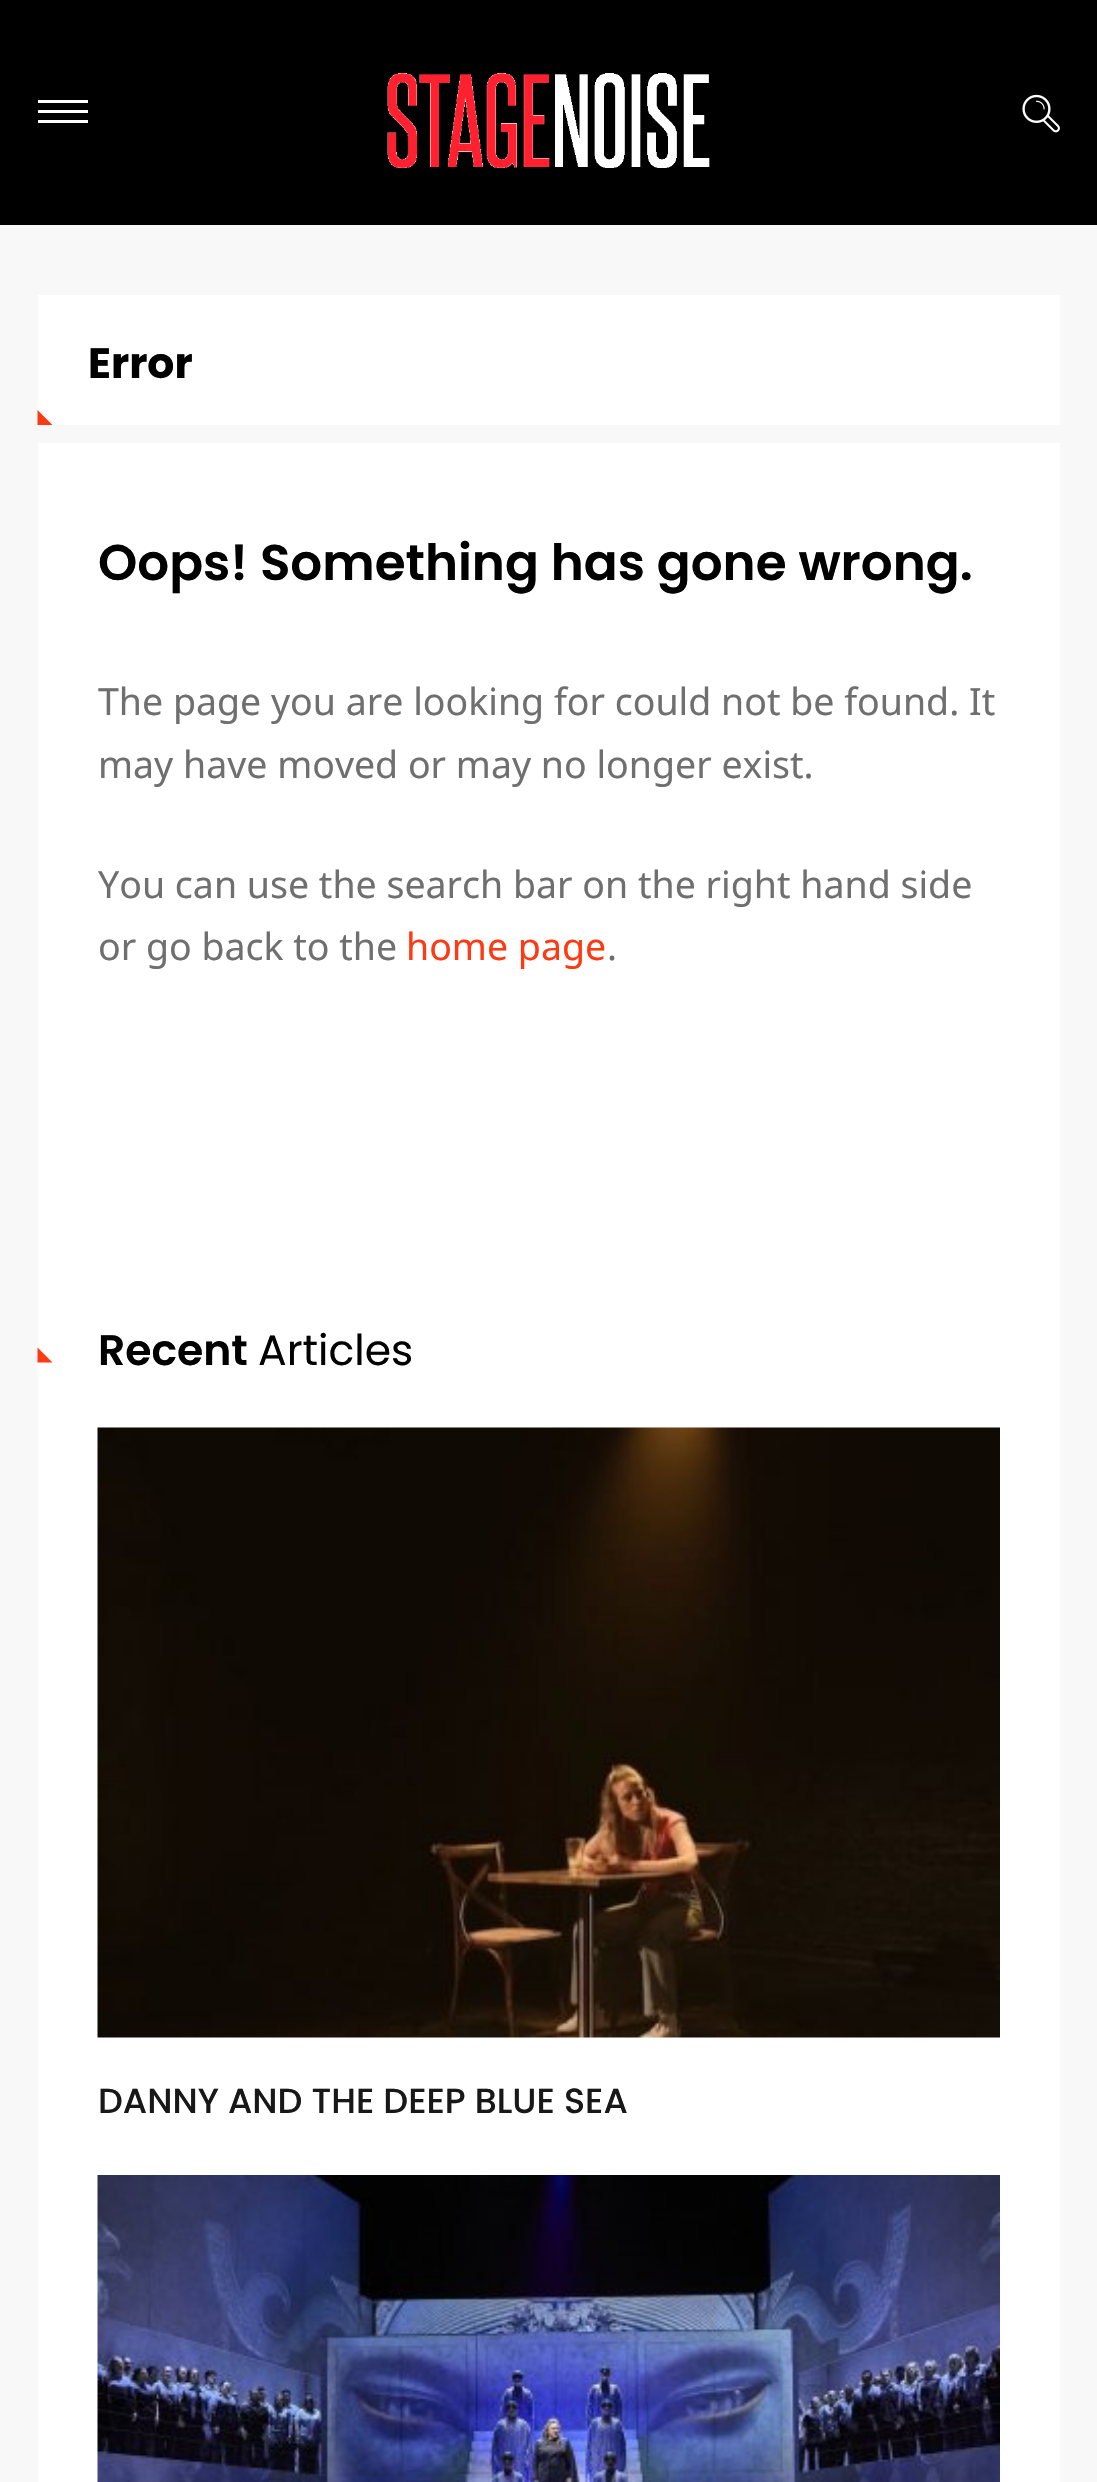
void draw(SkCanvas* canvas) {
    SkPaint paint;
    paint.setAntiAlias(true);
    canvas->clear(0xFFF8F8F8);
    paint.setColor(0xFF000000);
    canvas->drawRect(SkRect::MakeXYWH(0, 0, 1097, 225), paint);
    paint.setColor(0xFFFFFFFF);
    canvas->drawRect(SkRect::MakeXYWH(38, 110, 50, 3), paint);
    canvas->drawRect(SkRect::MakeXYWH(38, 100, 50, 3), paint);
    canvas->drawRect(SkRect::MakeXYWH(38, 120, 50, 3), paint);
    canvas->drawImageRect(SkImages::DeferredFromEncodedData(SkData::MakeFromFileName("img1.png")), SkRect::MakeXYWH(387, 73, 323, 95), SkSamplingOptions());
    canvas->drawImageRect(SkImages::DeferredFromEncodedData(SkData::MakeFromFileName("img2.png")), SkRect::MakeXYWH(1022, 94, 38, 39), SkSamplingOptions());
    canvas->drawRect(SkRect::MakeXYWH(38, 295, 1022, 130), paint);
    SkFont font1(fontMgr->matchFamilyStyle("Poppins", SkFontStyle::Bold()), 42.5f);
    font1.setSubpixel(true);
    paint.setColor(0xFF000000);
    canvas->drawString("Error", 88, 378, font1, paint);
    paint.setColor(0xFFFD3A13);
    canvas->drawPath(SkPathBuilder().moveTo(52.5f, 425).lineTo(37.5f, 425).lineTo(37.5f, 410).close().detach(), paint);
    paint.setColor(0xFFFFFFFF);
    canvas->drawRect(SkRect::MakeXYWH(38, 443, 1022, 2039), paint);
    SkFont font2(fontMgr->matchFamilyStyle("Poppins", SkFontStyle(600, SkFontStyle::kNormal_Width, SkFontStyle::kUpright_Slant)), 50);
    font2.setSubpixel(true);
    paint.setColor(0xFF000000);
    canvas->drawString("Oops! Something has gone wrong.", 98, 580, font2, paint);
    SkFont font3(fontMgr->matchFamilyStyle("Noto Sans", SkFontStyle::Normal()), 37.5f);
    font3.setSubpixel(true);
    paint.setColor(0xFF6F6F6F);
    canvas->drawString("The page you are looking for could not be found. It", 98, 715, font3, paint);
    canvas->drawString("may have moved or may no longer exist.", 98, 778, font3, paint);
    canvas->drawString("You can use the search bar on the right hand side", 98, 898, font3, paint);
    canvas->drawString("or go back to the", 98, 960, font3, paint);
    paint.setColor(0xFFFD3A13);
    canvas->drawString("home page", 406, 960, font3, paint);
    paint.setColor(0xFF6F6F6F);
    canvas->drawString(".", 607, 960, font3, paint);
    paint.setColor(0xFFFD3A13);
    canvas->drawPath(SkPathBuilder().moveTo(52.5f, 1362.5f).lineTo(37.5f, 1362.5f).lineTo(37.5f, 1347.5f).close().detach(), paint);
    SkFont font4(fontMgr->matchFamilyStyle("Poppins", SkFontStyle(600, SkFontStyle::kNormal_Width, SkFontStyle::kUpright_Slant)), 42.5f);
    font4.setSubpixel(true);
    paint.setColor(0xFF000000);
    canvas->drawString("Recent", 98, 1365, font4, paint);
    SkFont font5(fontMgr->matchFamilyStyle("Poppins", SkFontStyle::Normal()), 42.5f);
    font5.setSubpixel(true);
    canvas->drawString("Articles", 258, 1365, font5, paint);
    canvas->drawImageRect(SkImages::DeferredFromEncodedData(SkData::MakeFromFileName("img3.png")), SkRect::MakeXYWH(97, 1427, 903, 611), SkSamplingOptions());
    SkFont font6(fontMgr->matchFamilyStyle("Poppins", SkFontStyle(500, SkFontStyle::kNormal_Width, SkFontStyle::kUpright_Slant)), 35);
    font6.setSubpixel(true);
    paint.setColor(0xFF181818);
    canvas->drawString("DANNY AND THE DEEP BLUE SEA", 98, 2113, font6, paint);
    canvas->drawImageRect(SkImages::DeferredFromEncodedData(SkData::MakeFromFileName("img4.png")), SkRect::MakeXYWH(97, 2175, 903, 307), SkSamplingOptions());
}
